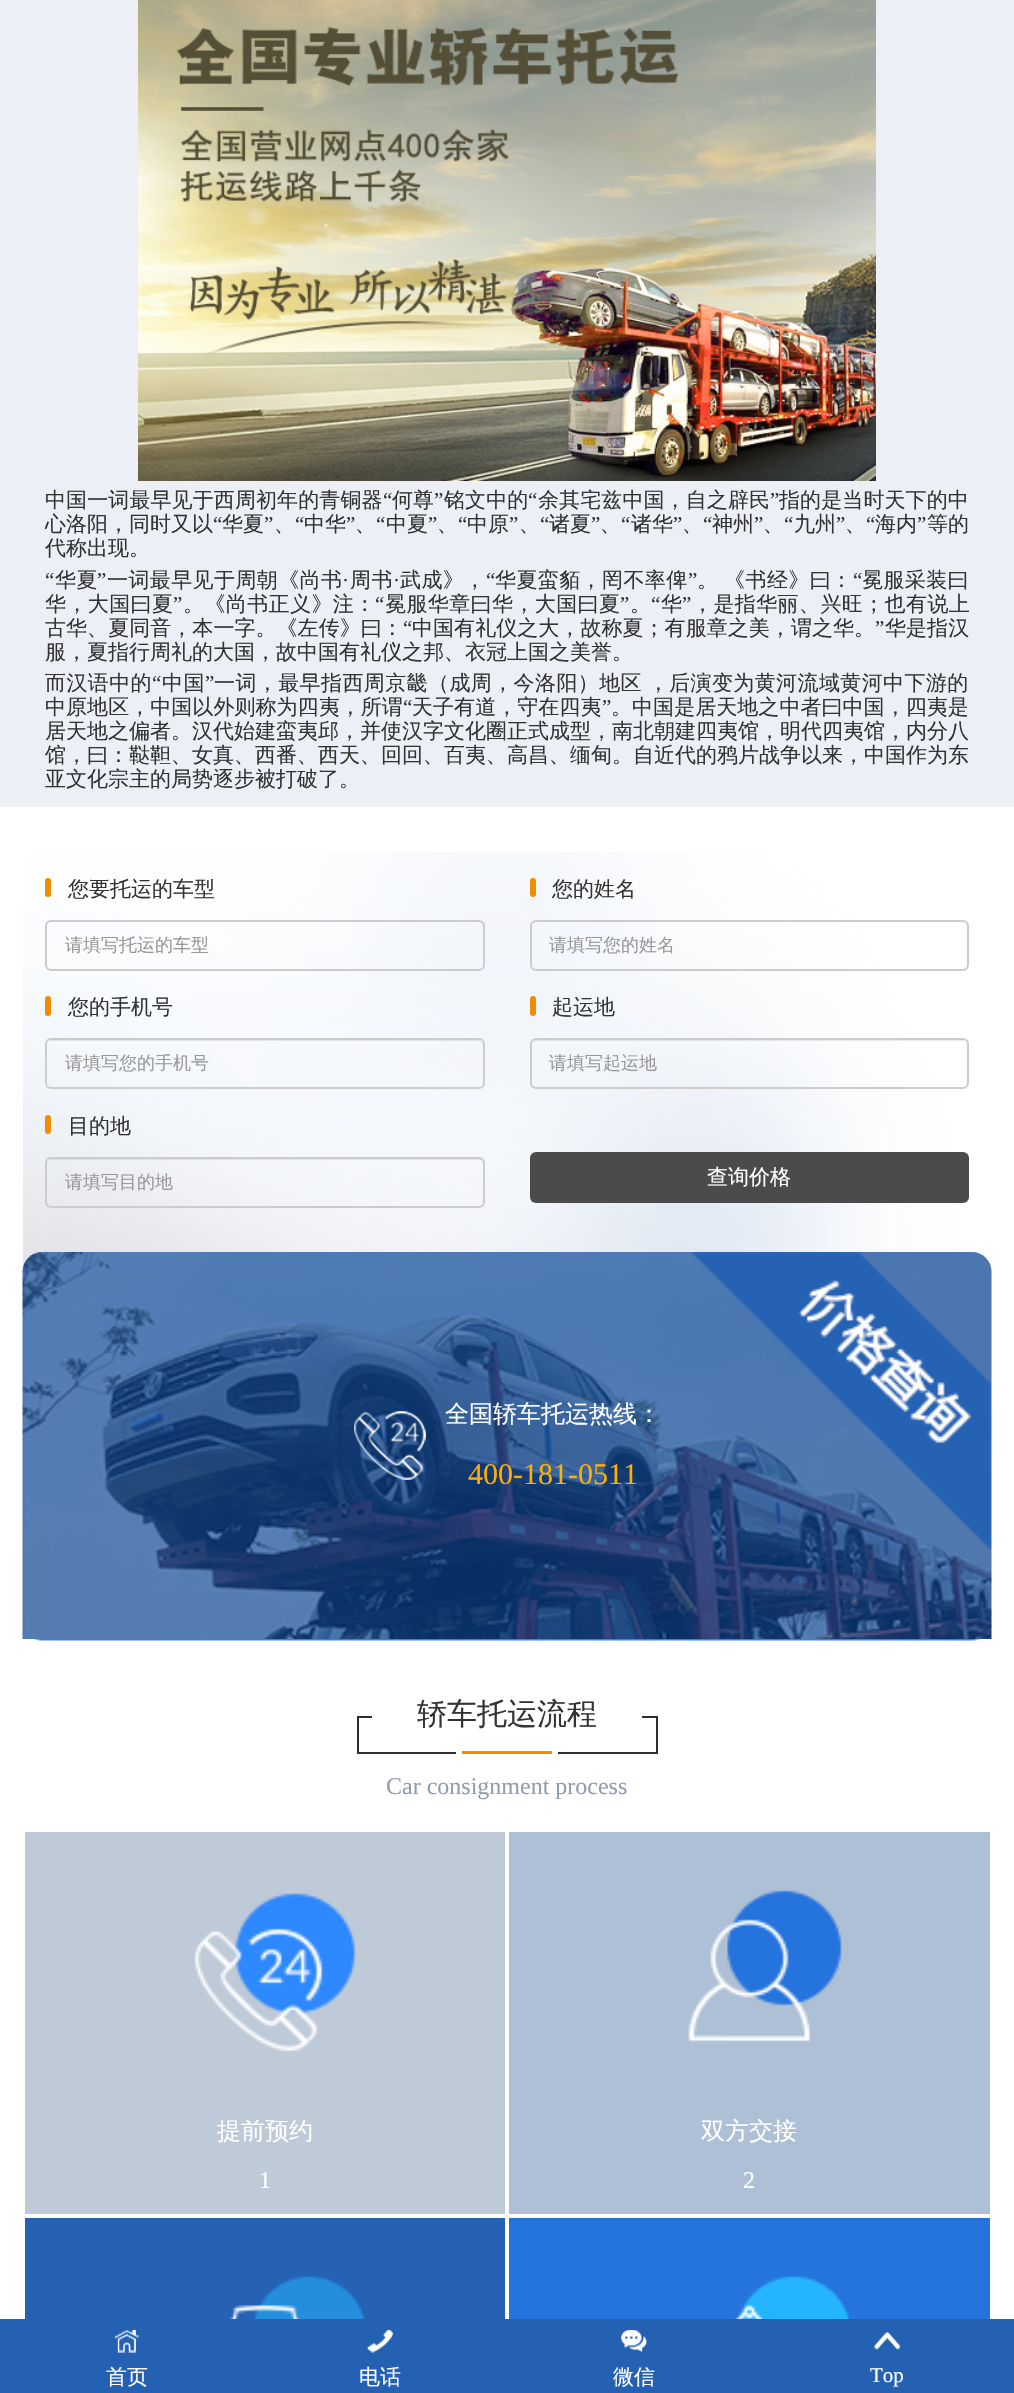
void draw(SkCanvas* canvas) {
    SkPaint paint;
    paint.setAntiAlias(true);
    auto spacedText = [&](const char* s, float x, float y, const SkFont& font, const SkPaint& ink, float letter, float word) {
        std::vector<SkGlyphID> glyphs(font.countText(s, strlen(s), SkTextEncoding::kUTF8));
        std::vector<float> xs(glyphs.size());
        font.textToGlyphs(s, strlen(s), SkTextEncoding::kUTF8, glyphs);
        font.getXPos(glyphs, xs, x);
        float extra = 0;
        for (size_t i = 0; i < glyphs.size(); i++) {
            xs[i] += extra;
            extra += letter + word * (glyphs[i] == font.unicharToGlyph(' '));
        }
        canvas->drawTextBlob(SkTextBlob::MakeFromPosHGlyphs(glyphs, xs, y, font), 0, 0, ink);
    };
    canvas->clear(0xFFFFFFFF);
    paint.setColor(0xFFECF0F6);
    canvas->drawRect(SkRect::MakeXYWH(0, 0, 1014, 807), paint);
    canvas->drawImageRect(SkImages::DeferredFromEncodedData(SkData::MakeFromFileName("img1.png")), SkRect::MakeXYWH(138, 0, 738, 481), SkSamplingOptions());
    SkFont font1(fontMgr->matchFamilyStyle("WenQuanYi Zen Hei", SkFontStyle(500, SkFontStyle::kNormal_Width, SkFontStyle::kUpright_Slant)), 21);
    font1.setSubpixel(true);
    paint.setColor(0xFF333333);
    spacedText("中国一词最早见于西周初年的青铜器", 45, 507, font1, paint, 0.1f, 0);
    SkFont font2(fontMgr->matchFamilyStyle("Liberation Serif", SkFontStyle::Normal()), 21);
    font2.setSubpixel(true);
    spacedText("“", 383, 507, font2, paint, 0.1f, 0);
    spacedText("何尊", 392, 507, font1, paint, 0.1f, 0);
    spacedText("”", 434, 507, font2, paint, 0.1f, 0);
    spacedText("铭文中的", 444, 507, font1, paint, 0.1f, 0);
    spacedText("“", 528, 507, font2, paint, 0.1f, 0);
    spacedText("余其宅兹中国，自之辟民", 538, 507, font1, paint, 0.1f, 0);
    spacedText("”", 770, 507, font2, paint, 0.1f, 0);
    spacedText("指的是当时天下的中", 779, 507, font1, paint, 0.1f, 0);
    canvas->drawString("心洛阳，同时又以", 45, 531, font1, paint);
    canvas->drawString("“", 213, 531, font2, paint);
    canvas->drawString("华夏", 222, 531, font1, paint);
    canvas->drawString("”", 264, 531, font2, paint);
    canvas->drawString("“", 295, 531, font2, paint);
    canvas->drawString("中华", 304, 531, font1, paint);
    canvas->drawString("”", 346, 531, font2, paint);
    canvas->drawString("“", 376, 531, font2, paint);
    canvas->drawString("中夏", 386, 531, font1, paint);
    canvas->drawString("”", 428, 531, font2, paint);
    canvas->drawString("“", 458, 531, font2, paint);
    canvas->drawString("中原", 467, 531, font1, paint);
    canvas->drawString("”", 509, 531, font2, paint);
    canvas->drawString("“", 540, 531, font2, paint);
    canvas->drawString("诸夏", 549, 531, font1, paint);
    canvas->drawString("”", 591, 531, font2, paint);
    canvas->drawString("“", 621, 531, font2, paint);
    canvas->drawString("诸华", 631, 531, font1, paint);
    canvas->drawString("”", 673, 531, font2, paint);
    canvas->drawString("“", 703, 531, font2, paint);
    canvas->drawString("神州", 712, 531, font1, paint);
    canvas->drawString("”", 754, 531, font2, paint);
    canvas->drawString("“", 784, 531, font2, paint);
    canvas->drawString("九州", 794, 531, font1, paint);
    canvas->drawString("”", 836, 531, font2, paint);
    canvas->drawString("“", 866, 531, font2, paint);
    canvas->drawString("海内", 875, 531, font1, paint);
    canvas->drawString("”", 917, 531, font2, paint);
    canvas->drawString("等的", 927, 531, font1, paint);
    canvas->drawString("、", 274, 531, font1, paint);
    canvas->drawString("、", 355, 531, font1, paint);
    canvas->drawString("、", 437, 531, font1, paint);
    canvas->drawString("、", 519, 531, font1, paint);
    canvas->drawString("、", 600, 531, font1, paint);
    canvas->drawString("、", 682, 531, font1, paint);
    canvas->drawString("、", 763, 531, font1, paint);
    canvas->drawString("、", 845, 531, font1, paint);
    canvas->drawString("代称出现。", 45, 555, font1, paint);
    spacedText("“", 45, 587, font2, paint, 0.4f, 0);
    spacedText("华夏", 55, 587, font1, paint, 0.4f, 0);
    spacedText("”", 97, 587, font2, paint, 0.4f, 0);
    spacedText("一词最早见于周朝《尚书", 107, 587, font1, paint, 0.4f, 0);
    spacedText("周书", 350, 587, font1, paint, 0.4f, 0);
    spacedText("武成》，", 400, 587, font1, paint, 0.4f, 0);
    spacedText("“", 486, 587, font2, paint, 0.4f, 0);
    spacedText("华夏蛮貊，罔不率俾", 495, 587, font1, paint, 0.4f, 0);
    spacedText("”", 688, 587, font2, paint, 0.4f, 0);
    spacedText("。 《书经》曰：", 697, 587, font1, paint, 0.4f, -1);
    spacedText("“", 853, 587, font2, paint, 0.4f, 0);
    spacedText("冕服采装曰", 862, 587, font1, paint, 0.4f, 0);
    spacedText("·", 342, 587, font2, paint, 0.4f, 0);
    spacedText("·", 393, 587, font2, paint, 0.4f, 0);
    spacedText("华，大国曰夏", 45, 611, font1, paint, 0.4f, 0);
    spacedText("”", 173, 611, font2, paint, 0.4f, 0);
    spacedText("。《尚书正义》注：", 183, 611, font1, paint, 0.4f, 0);
    spacedText("“", 375, 611, font2, paint, 0.4f, 0);
    spacedText("冕服华章曰华，大国曰夏", 385, 611, font1, paint, 0.4f, 0);
    spacedText("”", 620, 611, font2, paint, 0.4f, 0);
    spacedText("“", 651, 611, font2, paint, 0.4f, 0);
    spacedText("华", 661, 611, font1, paint, 0.4f, 0);
    spacedText("”", 682, 611, font2, paint, 0.4f, 0);
    spacedText("，是指华丽、兴旺；也有说上", 692, 611, font1, paint, 0.4f, 0);
    spacedText("。", 630, 611, font1, paint, 0.4f, 0);
    spacedText("古华、夏同音，本一字。《左传》曰：", 45, 635, font1, paint, 0.05f, 0);
    spacedText("“", 403, 635, font2, paint, 0.05f, 0);
    spacedText("中国有礼仪之大，故称夏；有服章之美，谓之华。", 412, 635, font1, paint, 0.05f, 0);
    spacedText("”", 875, 635, font2, paint, 0.05f, 0);
    spacedText("华是指汉", 885, 635, font1, paint, 0.05f, 0);
    canvas->drawString("服，夏指行周礼的大国，故中国有礼仪之邦、衣冠上国之美誉。", 45, 659, font1, paint);
    spacedText("而汉语中的", 45, 690, font1, paint, 0.4f, 0);
    spacedText("“", 152, 690, font2, paint, 0.4f, 0);
    spacedText("中国", 162, 690, font1, paint, 0.4f, 0);
    spacedText("”", 205, 690, font2, paint, 0.4f, 0);
    spacedText("一词，最早指西周京畿（成周，今洛阳）地区 ，后演变为黄河流域黄河中下游的", 214, 690, font1, paint, 0.4f, -1);
    spacedText("中原地区，中国以外则称为四夷，所谓", 45, 714, font1, paint, 0.05f, 0);
    spacedText("“", 403, 714, font2, paint, 0.05f, 0);
    spacedText("天子有道，守在四夷", 412, 714, font1, paint, 0.05f, 0);
    spacedText("”", 602, 714, font2, paint, 0.05f, 0);
    spacedText("。中国是居天地之中者曰中国，四夷是", 611, 714, font1, paint, 0.05f, 0);
    canvas->drawString("居天地之偏者。汉代始建蛮夷邱，并使汉字文化圈正式成型，南北朝建四夷馆，明代四夷馆，内分八", 45, 738, font1, paint);
    canvas->drawString("馆，曰：鞑靼、女真、西番、西天、回回、百夷、高昌、缅甸。自近代的鸦片战争以来，中国作为东", 45, 762, font1, paint);
    canvas->drawString("亚文化宗主的局势逐步被打破了。", 45, 786, font1, paint);
    canvas->drawImageRect(SkImages::DeferredFromEncodedData(SkData::MakeFromFileName("img2.png")), SkRect::MakeXYWH(23, 852, 969, 789), SkSamplingOptions());
    paint.setColor(0xFFEF8C00);
    canvas->drawRoundRect(SkRect::MakeXYWH(45, 878, 6, 19), 3, 3, paint);
    paint.setColor(0xFF333333);
    canvas->drawString("您要托运的车型", 68, 896, font1, paint);
    paint.setColor(0x12000000);
    canvas->drawPath(SkPathBuilder().moveTo(51, 922).lineTo(478, 922).cubicTo(481, 922, 483, 925, 483, 927).lineTo(483, 926).cubicTo(483, 923, 481, 921, 478, 921).lineTo(52, 921).cubicTo(50, 921, 48, 922, 47, 924).cubicTo(48, 923, 50, 922, 51, 922).close().detach(), paint);
    paint.setStyle(SkPaint::kStroke_Style);
    paint.setStrokeWidth(2);
    paint.setColor(0xFFCCCCCC);
    canvas->drawRoundRect(SkRect::MakeXYWH(46, 921, 438, 49), 5, 5, paint);
    SkFont font3(fontMgr->matchFamilyStyle("WenQuanYi Zen Hei", SkFontStyle(500, SkFontStyle::kNormal_Width, SkFontStyle::kUpright_Slant)), 18);
    font3.setSubpixel(true);
    paint.setStyle(SkPaint::kFill_Style);
    paint.setColor(0xFF999999);
    canvas->drawString("请填写托运的车型", 65, 951, font3, paint);
    paint.setColor(0xFFEF8C00);
    canvas->drawRoundRect(SkRect::MakeXYWH(530, 878, 6, 19), 3, 3, paint);
    paint.setColor(0xFF333333);
    canvas->drawString("您的姓名", 552, 896, font1, paint);
    paint.setColor(0x12000000);
    canvas->drawPath(SkPathBuilder().moveTo(536, 922).lineTo(963, 922).cubicTo(965, 922, 968, 925, 968, 927).cubicTo(968, 924, 966, 921, 963, 921).lineTo(536, 921).cubicTo(533, 921, 531, 924, 531, 927).cubicTo(531, 925, 533, 922, 536, 922).close().detach(), paint);
    paint.setStyle(SkPaint::kStroke_Style);
    paint.setColor(0xFFCCCCCC);
    canvas->drawRoundRect(SkRect::MakeXYWH(531, 921, 437, 49), 5, 5, paint);
    paint.setStyle(SkPaint::kFill_Style);
    paint.setColor(0xFF999999);
    canvas->drawString("请填写您的姓名", 549, 951, font3, paint);
    paint.setColor(0xFFEF8C00);
    canvas->drawRoundRect(SkRect::MakeXYWH(45, 996, 6, 20), 3, 3, paint);
    paint.setColor(0xFF333333);
    canvas->drawString("您的手机号", 68, 1014, font1, paint);
    paint.setColor(0x12000000);
    canvas->drawPath(SkPathBuilder().moveTo(51, 1041).lineTo(478, 1041).cubicTo(481, 1041, 483, 1043, 483, 1046).lineTo(483, 1045).cubicTo(483, 1042, 481, 1040, 478, 1040).lineTo(52, 1040).cubicTo(50, 1040, 49, 1041, 48, 1042).close().detach(), paint);
    paint.setStyle(SkPaint::kStroke_Style);
    paint.setColor(0xFFCCCCCC);
    canvas->drawRoundRect(SkRect::MakeXYWH(46, 1039, 438, 49), 5, 5, paint);
    paint.setStyle(SkPaint::kFill_Style);
    paint.setColor(0xFF999999);
    canvas->drawString("请填写您的手机号", 65, 1069, font3, paint);
    paint.setColor(0xFFEF8C00);
    canvas->drawRoundRect(SkRect::MakeXYWH(530, 996, 6, 20), 3, 3, paint);
    paint.setColor(0xFF333333);
    canvas->drawString("起运地", 552, 1014, font1, paint);
    paint.setColor(0x12000000);
    canvas->drawPath(SkPathBuilder().moveTo(536, 1041).lineTo(963, 1041).cubicTo(965, 1041, 968, 1043, 968, 1046).cubicTo(968, 1043, 966, 1040, 963, 1040).lineTo(536, 1040).cubicTo(533, 1040, 531, 1043, 531, 1046).cubicTo(531, 1043, 533, 1041, 536, 1041).close().detach(), paint);
    paint.setStyle(SkPaint::kStroke_Style);
    paint.setColor(0xFFCCCCCC);
    canvas->drawRoundRect(SkRect::MakeXYWH(531, 1039, 437, 49), 5, 5, paint);
    paint.setStyle(SkPaint::kFill_Style);
    paint.setColor(0xFF999999);
    canvas->drawString("请填写起运地", 549, 1069, font3, paint);
    paint.setColor(0xFFEF8C00);
    canvas->drawRoundRect(SkRect::MakeXYWH(45, 1115, 6, 19), 3, 3, paint);
    paint.setColor(0xFF333333);
    canvas->drawString("目的地", 68, 1133, font1, paint);
    paint.setColor(0x12000000);
    canvas->drawPath(SkPathBuilder().moveTo(51, 1160).lineTo(478, 1160).cubicTo(481, 1160, 483, 1162, 483, 1164).lineTo(483, 1163).cubicTo(483, 1160, 481, 1158, 478, 1158).lineTo(52, 1158).cubicTo(50, 1158, 48, 1160, 47, 1162).cubicTo(48, 1161, 50, 1160, 51, 1160).close().detach(), paint);
    paint.setStyle(SkPaint::kStroke_Style);
    paint.setColor(0xFFCCCCCC);
    canvas->drawRoundRect(SkRect::MakeXYWH(46, 1158, 438, 49), 5, 5, paint);
    paint.setStyle(SkPaint::kFill_Style);
    paint.setColor(0xFF999999);
    canvas->drawString("请填写目的地", 65, 1188, font3, paint);
    paint.setColor(0xFF4B4B4B);
    canvas->drawRoundRect(SkRect::MakeXYWH(530, 1152, 439, 51), 6, 6, paint);
    paint.setColor(0xFFFFFFFF);
    canvas->drawString("查询价格", 707, 1184, font1, paint);
    canvas->drawImageRect(SkImages::DeferredFromEncodedData(SkData::MakeFromFileName("img3.png")), SkRect::MakeXYWH(22, 1252, 970, 387), SkSamplingOptions());
    canvas->drawImageRect(SkImages::DeferredFromEncodedData(SkData::MakeFromFileName("img4.png")), SkRect::MakeXYWH(354, 1411, 72, 69), SkSamplingOptions());
    SkFont font4(fontMgr->matchFamilyStyle("WenQuanYi Zen Hei", SkFontStyle(500, SkFontStyle::kNormal_Width, SkFontStyle::kUpright_Slant)), 24);
    font4.setSubpixel(true);
    canvas->drawString("全国轿车托运热线：", 445, 1422, font4, paint);
    SkFont font5(fontMgr->matchFamilyStyle("Liberation Serif", SkFontStyle::Normal()), 30);
    font5.setSubpixel(true);
    paint.setColor(0xFFFFAF00);
    canvas->drawString("400-181-0511", 468, 1484, font5, paint);
    paint.setColor(0xFF2E2E2E);
    canvas->drawRect(SkRect::MakeXYWH(357, 1716, 300, 2), paint);
    paint.setColor(0xFFFFFFFF);
    canvas->drawRect(SkRect::MakeXYWH(372, 1716, 270, 2), paint);
    SkFont font6(fontMgr->matchFamilyStyle("WenQuanYi Zen Hei", SkFontStyle(500, SkFontStyle::kNormal_Width, SkFontStyle::kUpright_Slant)), 30);
    font6.setSubpixel(true);
    paint.setColor(0xFF333333);
    canvas->drawString("轿车托运流程", 417, 1724, font6, paint);
    paint.setColor(0xFF2E2E2E);
    canvas->drawRect(SkRect::MakeXYWH(558, 1752, 99, 2), paint);
    canvas->drawRect(SkRect::MakeXYWH(656, 1716, 2, 38), paint);
    canvas->drawRect(SkRect::MakeXYWH(357, 1752, 99, 2), paint);
    canvas->drawRect(SkRect::MakeXYWH(357, 1716, 2, 38), paint);
    paint.setColor(0xFFEF8C00);
    canvas->drawRect(SkRect::MakeXYWH(462, 1751, 90, 3), paint);
    SkFont font7(fontMgr->matchFamilyStyle("Liberation Serif", SkFontStyle::Normal()), 24);
    font7.setSubpixel(true);
    paint.setColor(0xFF919DAF);
    canvas->drawString("Car consignment process", 386, 1794, font7, paint);
    canvas->drawImageRect(SkImages::DeferredFromEncodedData(SkData::MakeFromFileName("img5.png")), SkRect::MakeXYWH(25, 1832, 480, 382), SkSamplingOptions());
    paint.setColor(0xFFFFFFFF);
    canvas->drawString("提前预约", 217, 2139, font4, paint);
    canvas->drawString("1", 259, 2188, font7, paint);
    canvas->drawImageRect(SkImages::DeferredFromEncodedData(SkData::MakeFromFileName("img6.png")), SkRect::MakeXYWH(509, 1832, 481, 382), SkSamplingOptions());
    canvas->drawString("双方交接", 701, 2139, font4, paint);
    canvas->drawString("2", 743, 2188, font7, paint);
    canvas->drawImageRect(SkImages::DeferredFromEncodedData(SkData::MakeFromFileName("img7.png")), SkRect::MakeXYWH(25, 2218, 480, 101), SkSamplingOptions());
    canvas->drawImageRect(SkImages::DeferredFromEncodedData(SkData::MakeFromFileName("img8.png")), SkRect::MakeXYWH(509, 2218, 481, 101), SkSamplingOptions());
    paint.setColor(0xFF2561B3);
    canvas->drawRect(SkRect::MakeXYWH(0, 2319, 1014, 74), paint);
    canvas->drawImageRect(SkImages::DeferredFromEncodedData(SkData::MakeFromFileName("img9.png")), SkRect::MakeXYWH(114, 2330, 26, 23), SkSamplingOptions());
    paint.setColor(0xFFFFFFFF);
    canvas->drawString("首页", 106, 2384, font1, paint);
    canvas->drawImageRect(SkImages::DeferredFromEncodedData(SkData::MakeFromFileName("img10.png")), SkRect::MakeXYWH(367, 2330, 26, 23), SkSamplingOptions());
    canvas->drawString("电话", 359, 2384, font1, paint);
    canvas->drawImageRect(SkImages::DeferredFromEncodedData(SkData::MakeFromFileName("img11.png")), SkRect::MakeXYWH(621, 2330, 26, 23), SkSamplingOptions());
    canvas->drawString("微信", 613, 2384, font1, paint);
    canvas->drawImageRect(SkImages::DeferredFromEncodedData(SkData::MakeFromFileName("img12.png")), SkRect::MakeXYWH(874, 2332, 26, 18), SkSamplingOptions());
    canvas->drawString("Top", 870, 2382, font2, paint);
}
